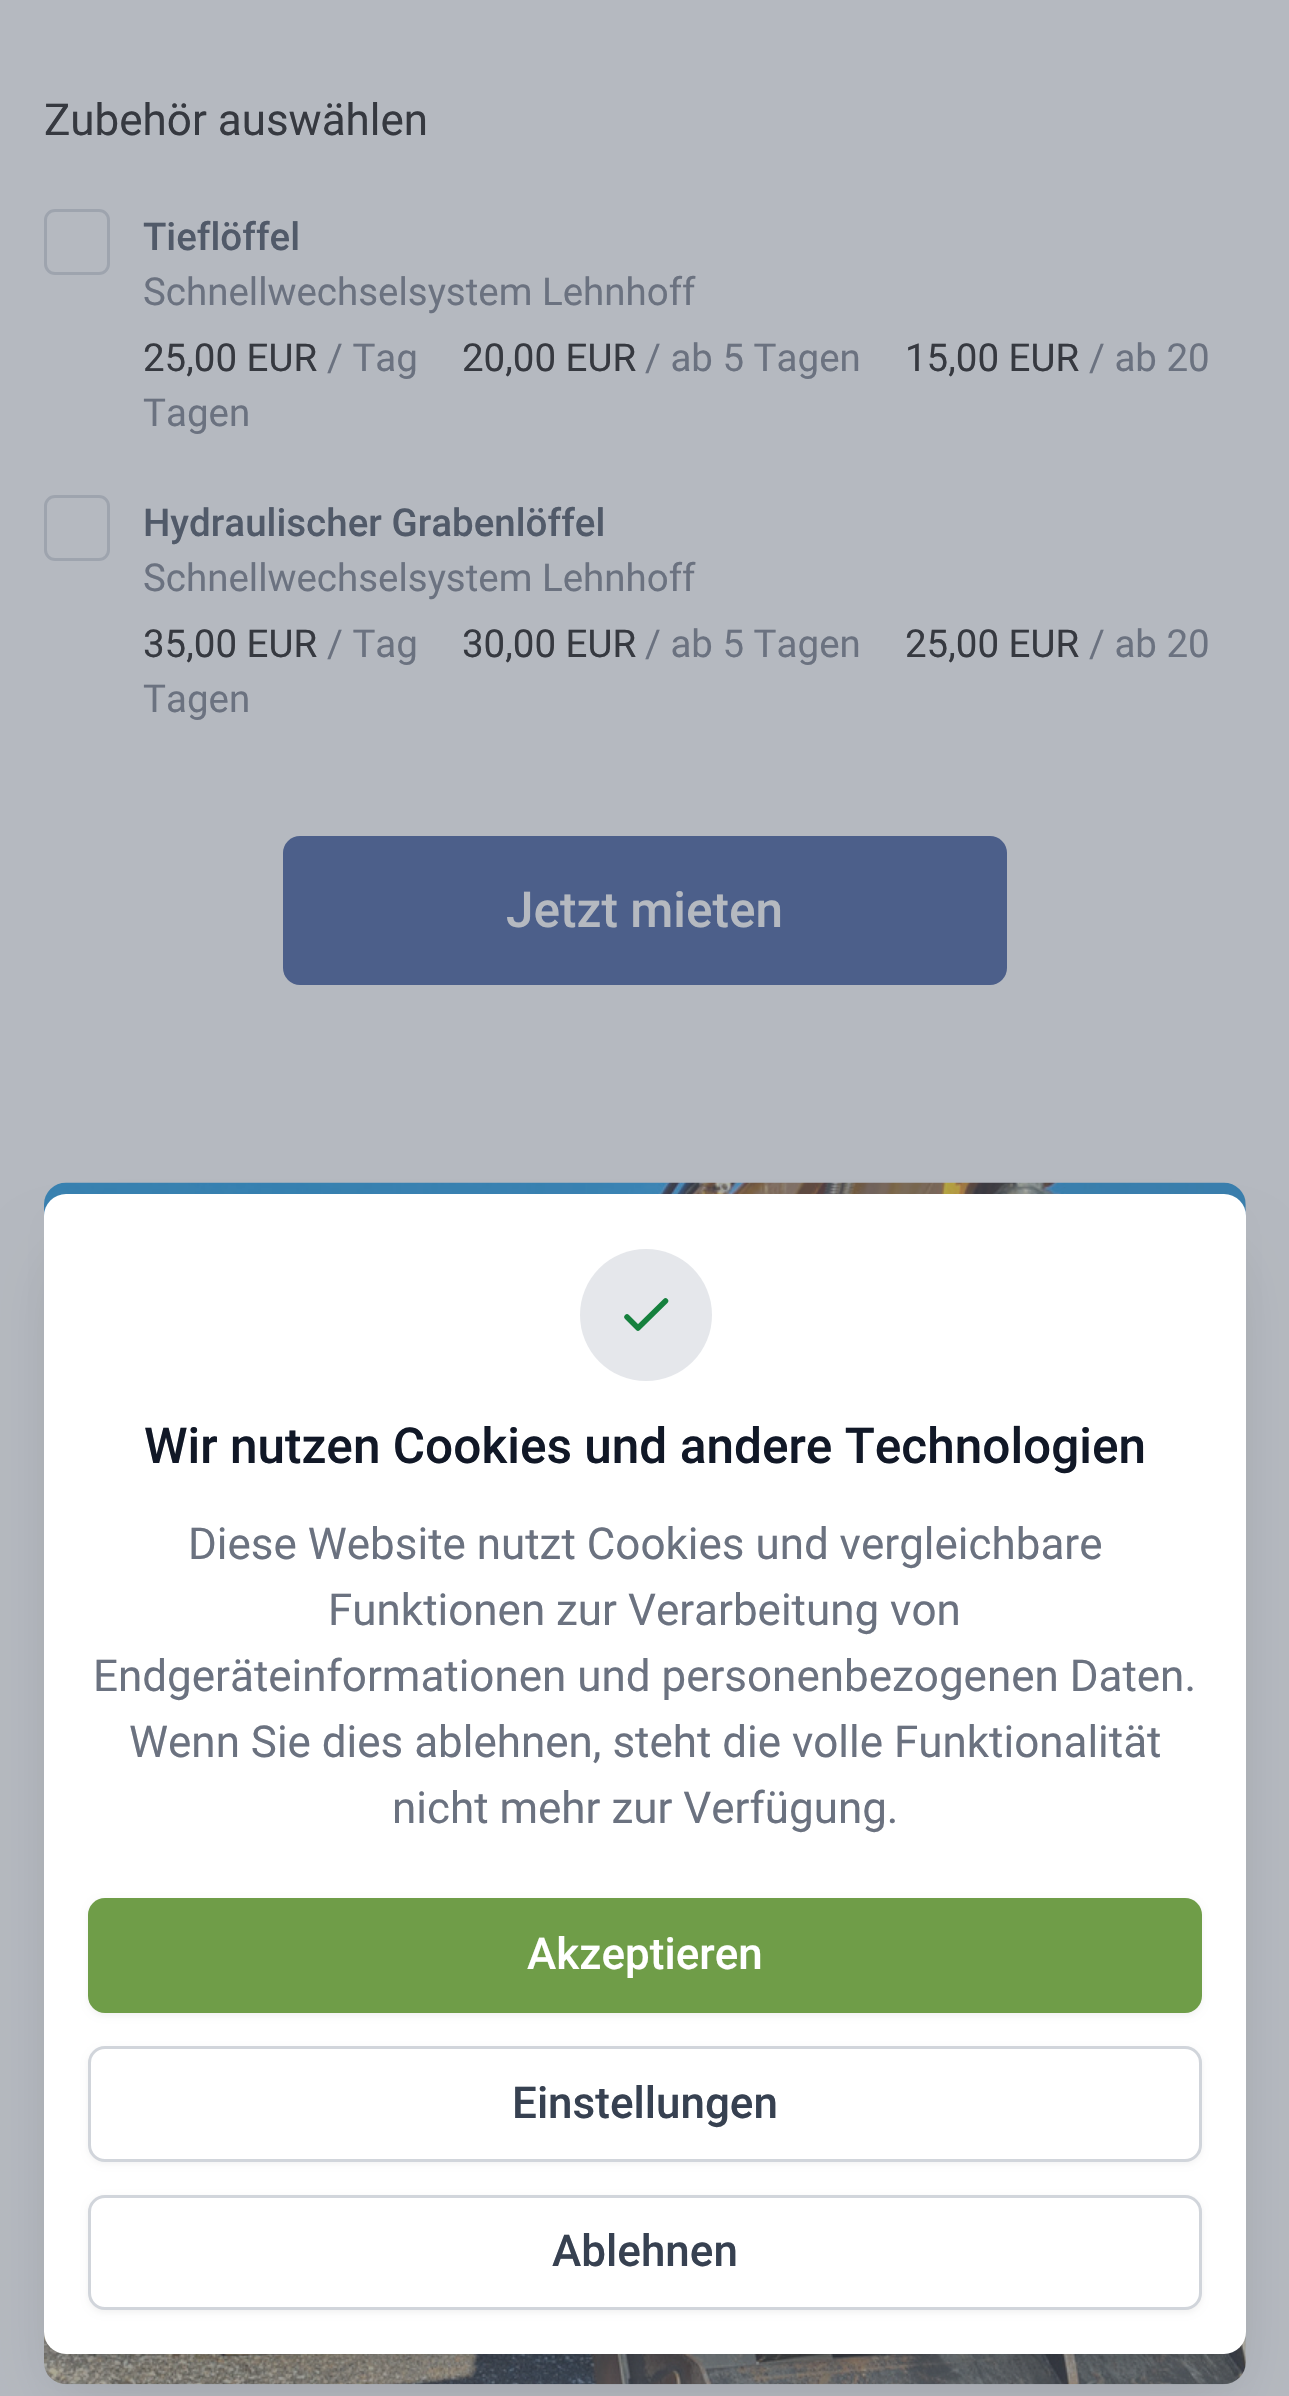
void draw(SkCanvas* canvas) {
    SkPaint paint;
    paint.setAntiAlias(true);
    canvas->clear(0xFFB5B9C0);
    SkFont font1(fontMgr->matchFamilyStyle("Roboto", SkFontStyle::Normal()), 44);
    font1.setSubpixel(true);
    paint.setColor(0xFF363940);
    canvas->drawString("Zubehör auswählen", 44, 135, font1, paint);
    paint.setStyle(SkPaint::kStroke_Style);
    paint.setStrokeWidth(3);
    paint.setColor(0xFF9EA4AE);
    canvas->drawRoundRect(SkRect::MakeXYWH(45.5f, 210.5f, 63, 63), 9.5f, 9.5f, paint);
    SkFont font2(fontMgr->matchFamilyStyle("Roboto", SkFontStyle(500, SkFontStyle::kNormal_Width, SkFontStyle::kUpright_Slant)), 38.5f);
    font2.setSubpixel(true);
    paint.setStyle(SkPaint::kFill_Style);
    paint.setColor(0xFF515A69);
    canvas->drawString("Tieflöffel", 143, 250, font2, paint);
    SkFont font3(fontMgr->matchFamilyStyle("Roboto", SkFontStyle::Normal()), 38.5f);
    font3.setSubpixel(true);
    paint.setColor(0xFF6B7280);
    canvas->drawString("Schnellwechselsystem Lehnhoff", 143, 305, font3, paint);
    paint.setColor(0xFF363940);
    canvas->drawString("25,00 EUR", 143, 371, font3, paint);
    paint.setColor(0xFF6B7280);
    canvas->drawString("/ Tag", 327, 371, font3, paint);
    paint.setColor(0xFF363940);
    canvas->drawString("20,00 EUR", 462, 371, font3, paint);
    paint.setColor(0xFF6B7280);
    canvas->drawString("/ ab 5 Tagen", 645, 371, font3, paint);
    paint.setColor(0xFF363940);
    canvas->drawString("15,00 EUR", 905, 371, font3, paint);
    paint.setColor(0xFF6B7280);
    canvas->drawString("/ ab 20", 1089, 371, font3, paint);
    canvas->drawString("Tagen", 143, 426, font3, paint);
    paint.setStyle(SkPaint::kStroke_Style);
    paint.setColor(0xFF9EA4AE);
    canvas->drawRoundRect(SkRect::MakeXYWH(45.5f, 496.5f, 63, 63), 9.5f, 9.5f, paint);
    paint.setStyle(SkPaint::kFill_Style);
    paint.setColor(0xFF515A69);
    canvas->drawString("Hydraulischer Grabenlöffel", 143, 536, font2, paint);
    paint.setColor(0xFF6B7280);
    canvas->drawString("Schnellwechselsystem Lehnhoff", 143, 591, font3, paint);
    paint.setColor(0xFF363940);
    canvas->drawString("35,00 EUR", 143, 657, font3, paint);
    paint.setColor(0xFF6B7280);
    canvas->drawString("/ Tag", 327, 657, font3, paint);
    paint.setColor(0xFF363940);
    canvas->drawString("30,00 EUR", 462, 657, font3, paint);
    paint.setColor(0xFF6B7280);
    canvas->drawString("/ ab 5 Tagen", 645, 657, font3, paint);
    paint.setColor(0xFF363940);
    canvas->drawString("25,00 EUR", 905, 657, font3, paint);
    paint.setColor(0xFF6B7280);
    canvas->drawString("/ ab 20", 1089, 657, font3, paint);
    canvas->drawString("Tagen", 143, 712, font3, paint);
    paint.setColor(0xFF4C5F8A);
    canvas->drawRoundRect(SkRect::MakeXYWH(283, 836, 724, 149), 17, 17, paint);
    SkFont font4(fontMgr->matchFamilyStyle("Roboto", SkFontStyle(500, SkFontStyle::kNormal_Width, SkFontStyle::kUpright_Slant)), 49.5f);
    font4.setSubpixel(true);
    paint.setColor(0xFFB5B9C0);
    canvas->drawString("Jetzt mieten", 506, 927, font4, paint);
    paint.setColor(0xFFAFB3BB);
    canvas->drawRoundRect(SkRect::MakeXYWH(44, 1183, 1202, 1201), 22, 22, paint);
    canvas->drawImageRect(SkImages::DeferredFromEncodedData(SkData::MakeFromFileName("img1.png")), SkRect::MakeXYWH(44, 1182, 1202, 1203), SkSamplingOptions());
    paint.setColor(0x1A000000);
    paint.setMaskFilter(SkMaskFilter::MakeBlur(kNormal_SkBlurStyle, 14));
    canvas->drawRoundRect(SkRect::MakeXYWH(61, 1232, 1168, 1128), 6, 6, paint);
    paint.setMaskFilter(nullptr);
    paint.setMaskFilter(SkMaskFilter::MakeBlur(kNormal_SkBlurStyle, 34.5f));
    canvas->drawRoundRect(SkRect::MakeXYWH(58, 1262, 1174, 1133), 8, 8, paint);
    paint.setMaskFilter(nullptr);
    paint.setColor(0xFFFFFFFF);
    canvas->drawRoundRect(SkRect::MakeXYWH(44, 1194, 1202, 1160), 22, 22, paint);
    paint.setColor(0xFFE5E7EB);
    canvas->drawCircle(646, 1315, 66, paint);
    paint.setStyle(SkPaint::kStroke_Style);
    paint.setStrokeWidth(5.5f);
    paint.setStrokeCap(SkPaint::kRound_Cap);
    paint.setStrokeJoin(SkPaint::kRound_Join);
    paint.setColor(0xFF15803D);
    canvas->drawPath(SkPathBuilder().moveTo(627, 1317).lineTo(638, 1328).lineTo(665.5f, 1301).detach(), paint);
    paint.setStyle(SkPaint::kFill_Style);
    paint.setColor(0xFF111827);
    canvas->drawString("Wir nutzen Cookies und andere Technologien", 144, 1463, font4, paint);
    paint.setColor(0xFF6B7280);
    canvas->drawString("Diese Website nutzt Cookies und vergleichbare", 188, 1559, font1, paint);
    canvas->drawString("Funktionen zur Verarbeitung von", 328, 1625, font1, paint);
    canvas->drawString("Endgeräteinformationen und personenbezogenen Daten.", 93, 1691, font1, paint);
    canvas->drawString("Wenn Sie dies ablehnen, steht die volle Funktionalität", 129, 1757, font1, paint);
    canvas->drawString("nicht mehr zur Verfügung.", 392, 1823, font1, paint);
    paint.setColor(0x0D000000);
    paint.setMaskFilter(SkMaskFilter::MakeBlur(kNormal_SkBlurStyle, 3));
    canvas->drawRoundRect(SkRect::MakeXYWH(88, 1900, 1114, 116), 17, 17, paint);
    paint.setMaskFilter(nullptr);
    paint.setColor(0xFF6F9D48);
    canvas->drawRoundRect(SkRect::MakeXYWH(88, 1898, 1114, 115), 17, 17, paint);
    SkFont font5(fontMgr->matchFamilyStyle("Roboto", SkFontStyle(500, SkFontStyle::kNormal_Width, SkFontStyle::kUpright_Slant)), 44);
    font5.setSubpixel(true);
    paint.setColor(0xFFFFFFFF);
    canvas->drawString("Akzeptieren", 527, 1969, font5, paint);
    paint.setColor(0x0D000000);
    paint.setMaskFilter(SkMaskFilter::MakeBlur(kNormal_SkBlurStyle, 3));
    canvas->drawRoundRect(SkRect::MakeXYWH(88, 2049, 1114, 115), 17, 17, paint);
    paint.setMaskFilter(nullptr);
    paint.setColor(0xFFFFFFFF);
    canvas->drawRoundRect(SkRect::MakeXYWH(89.5f, 2047.5f, 1111, 113), 15.5f, 15.5f, paint);
    paint.setStyle(SkPaint::kStroke_Style);
    paint.setStrokeWidth(3);
    paint.setStrokeCap(SkPaint::kButt_Cap);
    paint.setStrokeJoin(SkPaint::kMiter_Join);
    paint.setColor(0xFFD1D5DB);
    canvas->drawRoundRect(SkRect::MakeXYWH(89.5f, 2047.5f, 1111, 113), 15.5f, 15.5f, paint);
    paint.setStyle(SkPaint::kFill_Style);
    paint.setColor(0xFF374151);
    canvas->drawString("Einstellungen", 512, 2118, font5, paint);
    paint.setColor(0x0D000000);
    paint.setMaskFilter(SkMaskFilter::MakeBlur(kNormal_SkBlurStyle, 3));
    canvas->drawRoundRect(SkRect::MakeXYWH(88, 2197, 1114, 116), 17, 17, paint);
    paint.setMaskFilter(nullptr);
    paint.setColor(0xFFFFFFFF);
    canvas->drawRoundRect(SkRect::MakeXYWH(89.5f, 2196.5f, 1111, 112), 15.5f, 15.5f, paint);
    paint.setStyle(SkPaint::kStroke_Style);
    paint.setColor(0xFFD1D5DB);
    canvas->drawRoundRect(SkRect::MakeXYWH(89.5f, 2196.5f, 1111, 112), 15.5f, 15.5f, paint);
    paint.setStyle(SkPaint::kFill_Style);
    paint.setColor(0xFF374151);
    canvas->drawString("Ablehnen", 552, 2266, font5, paint);
}
